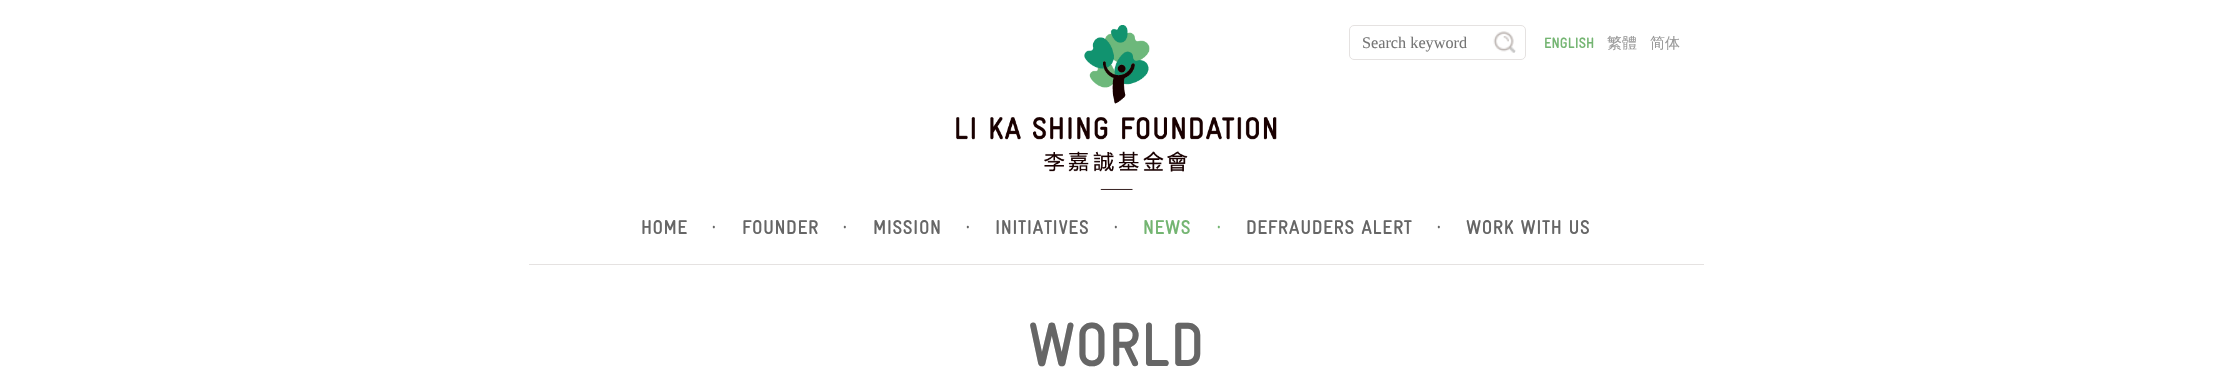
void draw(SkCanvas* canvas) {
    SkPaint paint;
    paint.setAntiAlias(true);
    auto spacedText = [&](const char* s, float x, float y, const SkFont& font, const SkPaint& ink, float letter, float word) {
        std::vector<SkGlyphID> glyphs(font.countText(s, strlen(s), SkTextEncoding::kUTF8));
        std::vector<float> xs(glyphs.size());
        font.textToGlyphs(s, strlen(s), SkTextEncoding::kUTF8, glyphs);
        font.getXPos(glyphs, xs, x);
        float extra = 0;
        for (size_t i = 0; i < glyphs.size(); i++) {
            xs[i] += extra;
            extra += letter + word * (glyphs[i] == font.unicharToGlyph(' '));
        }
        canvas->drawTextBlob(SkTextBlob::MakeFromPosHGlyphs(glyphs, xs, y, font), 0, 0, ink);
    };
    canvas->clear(0xFFFFFFFF);
    canvas->drawImageRect(SkImages::DeferredFromEncodedData(SkData::MakeFromFileName("img1.png")), SkRect::MakeXYWH(956, 25, 321, 165), SkSamplingOptions());
    paint.setStyle(SkPaint::kStroke_Style);
    paint.setStrokeWidth(1);
    paint.setColor(0xFFE5E2E1);
    canvas->drawRoundRect(SkRect::MakeXYWH(1349.5f, 25.5f, 176, 34), 4.5f, 4.5f, paint);
    SkFont font1(fontMgr->matchFamilyStyle("Liberation Serif", SkFontStyle::Normal()), 16.25f);
    font1.setSubpixel(true);
    paint.setStyle(SkPaint::kFill_Style);
    paint.setColor(0xFF757575);
    canvas->drawString("Search keyword", 1362, 48, font1, paint);
    canvas->drawImageRect(SkImages::DeferredFromEncodedData(SkData::MakeFromFileName("img2.png")), SkRect::MakeXYWH(1493, 31, 23, 22), SkSamplingOptions());
    SkFont font2(fontMgr->matchFamilyStyle("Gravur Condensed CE", SkFontStyle::Bold()), 15);
    font2.setSubpixel(true);
    paint.setColor(0xFF74B572);
    canvas->drawString("ENGLISH", 1544, 48, font2, paint);
    SkFont font3(fontMgr->matchFamilyStyle("WenQuanYi Zen Hei", SkFontStyle(500, SkFontStyle::kNormal_Width, SkFontStyle::kUpright_Slant)), 15);
    font3.setSubpixel(true);
    paint.setColor(0xFF999999);
    canvas->drawString("繁體", 1607, 48, font3, paint);
    canvas->drawString("简体", 1650, 48, font3, paint);
    paint.setColor(0xFFE5E2E1);
    canvas->drawRect(SkRect::MakeXYWH(529, 264, 1175, 1), paint);
    SkFont font4(fontMgr->matchFamilyStyle("Gravur Condensed CE", SkFontStyle::Bold()), 20);
    font4.setSubpixel(true);
    paint.setColor(0xFF666666);
    spacedText("HOME", 641, 234, font4, paint, 0.5f, 0);
    spacedText("·", 712, 234, font4, paint, 0.5f, 0);
    spacedText("FOUNDER", 742, 234, font4, paint, 0.5f, 0);
    spacedText("·", 843, 234, font4, paint, 0.5f, 0);
    spacedText("MISSION", 873, 234, font4, paint, 0.5f, 0);
    spacedText("·", 966, 234, font4, paint, 0.5f, 0);
    spacedText("INITIATIVES", 995, 234, font4, paint, 0.5f, 0);
    spacedText("·", 1114, 234, font4, paint, 0.5f, 0);
    paint.setColor(0xFF74B572);
    spacedText("NEWS", 1143, 234, font4, paint, 0.5f, 0);
    spacedText("·", 1217, 234, font4, paint, 0.5f, 0);
    paint.setColor(0xFF666666);
    spacedText("DEFRAUDERS ALERT", 1246, 234, font4, paint, 0.5f, 0);
    spacedText("·", 1437, 234, font4, paint, 0.5f, 0);
    spacedText("WORK WITH US", 1466, 234, font4, paint, 0.5f, 0);
    SkFont font5(fontMgr->matchFamilyStyle("Gravur Condensed CE", SkFontStyle::Bold()), 62.5f);
    font5.setSubpixel(true);
    canvas->drawString("WORLD", 1028, 366, font5, paint);
}
